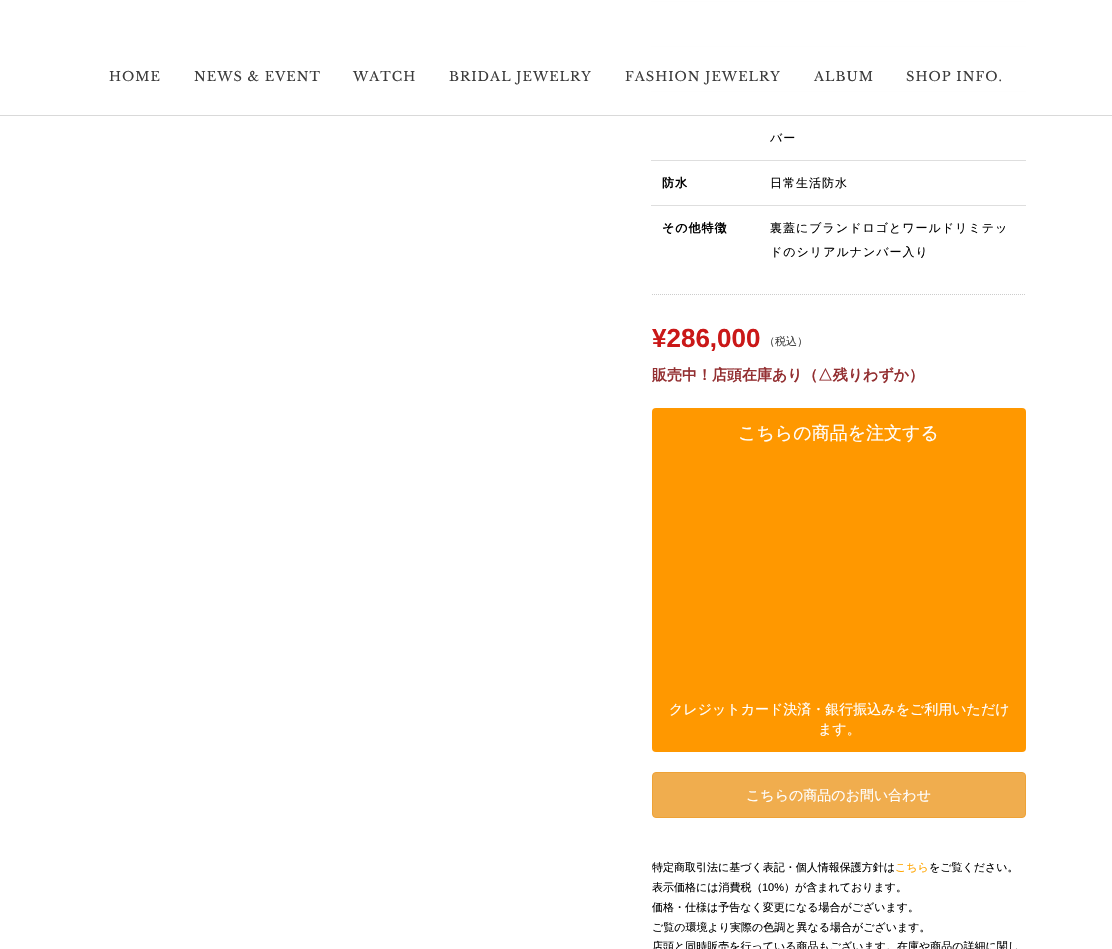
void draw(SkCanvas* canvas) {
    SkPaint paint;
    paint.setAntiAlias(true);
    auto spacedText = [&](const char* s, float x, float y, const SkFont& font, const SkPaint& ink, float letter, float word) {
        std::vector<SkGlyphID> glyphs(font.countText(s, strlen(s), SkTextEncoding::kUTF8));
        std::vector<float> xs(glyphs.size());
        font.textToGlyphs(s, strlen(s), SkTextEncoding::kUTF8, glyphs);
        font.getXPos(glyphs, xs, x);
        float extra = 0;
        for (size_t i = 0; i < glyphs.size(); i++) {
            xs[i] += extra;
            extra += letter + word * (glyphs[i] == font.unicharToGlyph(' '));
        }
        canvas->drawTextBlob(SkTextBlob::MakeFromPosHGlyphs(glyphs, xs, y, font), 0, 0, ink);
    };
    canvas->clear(0xFFFFFFFF);
    paint.setColor(0xFFDEDEDE);
    canvas->drawRect(SkRect::MakeXYWH(651, 1, 375, 1), paint);
    canvas->drawRect(SkRect::MakeXYWH(651, 46, 375, 1), paint);
    canvas->drawRect(SkRect::MakeXYWH(651, 91, 375, 1), paint);
    canvas->save();
    canvas->clipRect(SkRect::MakeXYWH(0, 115, 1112, 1));
    paint.setColor(0x26000000);
    paint.setMaskFilter(SkMaskFilter::MakeBlur(kNormal_SkBlurStyle, 0.5f));
    canvas->drawRect(SkRect::MakeXYWH(0, 1, 1112, 115), paint);
    paint.setMaskFilter(nullptr);
    canvas->restore();
    paint.setColor(0xF7FFFFFF);
    canvas->drawRect(SkRect::MakeXYWH(651, 1, 375, 91), paint);
    SkFont font1(fontMgr->matchFamilyStyle("Libre Baskerville", SkFontStyle::Normal()), 13);
    font1.setSubpixel(true);
    paint.setColor(0xFF3C3C3C);
    spacedText("HOME", 109, 81, font1, paint, 1, 0);
    spacedText("NEWS & EVENT", 194, 81, font1, paint, 1, 0);
    spacedText("WATCH", 353, 81, font1, paint, 1, 0);
    spacedText("BRIDAL JEWELRY", 449, 81, font1, paint, 1, 0);
    spacedText("FASHION JEWELRY", 625, 81, font1, paint, 1, 0);
    spacedText("ALBUM", 814, 81, font1, paint, 1, 0);
    spacedText("SHOP INFO.", 906, 81, font1, paint, 1, 0);
    paint.setStyle(SkPaint::kStroke_Style);
    paint.setStrokeWidth(1);
    paint.setColor(0xFFCCCCCC);
    paint.setPathEffect(SkDashPathEffect::Make({{1, 1}}, 0));
    canvas->drawPath(SkPathBuilder().moveTo(652, 294.5f).lineTo(1026, 294.5f).detach(), paint);
    paint.setPathEffect(nullptr);
    paint.setStyle(SkPaint::kFill_Style);
    paint.setColor(0xFFDEDEDE);
    canvas->drawRect(SkRect::MakeXYWH(651, 160, 375, 1), paint);
    SkFont font2(fontMgr->matchFamilyStyle("WenQuanYi Zen Hei", SkFontStyle(500, SkFontStyle::kNormal_Width, SkFontStyle::kUpright_Slant)), 12);
    font2.setSubpixel(true);
    paint.setColor(0xFF000000);
    spacedText("バー", 770, 142, font2, paint, 1, 0);
    paint.setColor(0xFFDEDEDE);
    canvas->drawRect(SkRect::MakeXYWH(651, 205, 375, 1), paint);
    SkFont font3(fontMgr->matchFamilyStyle("WenQuanYi Zen Hei", SkFontStyle::Bold()), 12);
    font3.setSubpixel(true);
    paint.setColor(0xFF000000);
    spacedText("防水", 662, 187, font3, paint, 1, 0);
    spacedText("日常生活防水", 770, 187, font2, paint, 1, 0);
    spacedText("その他特徴", 662, 232, font3, paint, 1, 0);
    spacedText("裏蓋にブランドロゴとワールドリミテッ", 770, 232, font2, paint, 1, 0);
    spacedText("ドのシリアルナンバー入り", 770, 256, font2, paint, 1, 0);
    SkFont font4(fontMgr->matchFamilyStyle("Liberation Sans", SkFontStyle::Bold()), 26);
    font4.setSubpixel(true);
    paint.setColor(0xFFCA1818);
    canvas->drawString("¥286,000", 652, 347, font4, paint);
    SkFont font5(fontMgr->matchFamilyStyle("WenQuanYi Zen Hei", SkFontStyle(500, SkFontStyle::kNormal_Width, SkFontStyle::kUpright_Slant)), 11);
    font5.setSubpixel(true);
    paint.setColor(0xFF444444);
    canvas->drawString("（税込）", 764, 345, font5, paint);
    SkFont font6(fontMgr->matchFamilyStyle("WenQuanYi Zen Hei", SkFontStyle::Bold()), 15);
    font6.setSubpixel(true);
    paint.setColor(0xFF932F31);
    canvas->drawString("販売中！店頭在庫あり（△残りわずか）", 652, 380, font6, paint);
    paint.setColor(0xFFFF9800);
    canvas->drawRoundRect(SkRect::MakeXYWH(652, 408, 374, 344), 4, 4, paint);
    SkFont font7(fontMgr->matchFamilyStyle("WenQuanYi Zen Hei", SkFontStyle(500, SkFontStyle::kNormal_Width, SkFontStyle::kUpright_Slant)), 18);
    font7.setSubpixel(true);
    paint.setColor(0xFFFFFFFF);
    canvas->drawString("こちらの商品を注文する", 738, 439, font7, paint);
    SkFont font8(fontMgr->matchFamilyStyle("WenQuanYi Zen Hei", SkFontStyle(500, SkFontStyle::kNormal_Width, SkFontStyle::kUpright_Slant)), 14);
    font8.setSubpixel(true);
    canvas->drawString("クレジットカード決済・銀行振込みをご利用いただけ", 669, 714, font8, paint);
    canvas->drawString("ます。", 818, 734, font8, paint);
    paint.setColor(0xFFF0AD4E);
    canvas->drawRoundRect(SkRect::MakeXYWH(652.5f, 772.5f, 373, 45), 3.5f, 3.5f, paint);
    paint.setStyle(SkPaint::kStroke_Style);
    paint.setColor(0xFFEEA236);
    canvas->drawRoundRect(SkRect::MakeXYWH(652.5f, 772.5f, 373, 45), 3.5f, 3.5f, paint);
    paint.setStyle(SkPaint::kFill_Style);
    paint.setColor(0xFFFFFFFF);
    canvas->drawString("こちらの商品のお問い合わせ", 746, 800, font8, paint);
    paint.setColor(0xFF000000);
    canvas->drawString("特定商取引法に基づく表記・個人情報保護方針は", 652, 871, font5, paint);
    paint.setColor(0xFFFFA500);
    canvas->drawString("こちら", 895, 871, font5, paint);
    paint.setColor(0xFF000000);
    canvas->drawString("をご覧ください。", 929, 871, font5, paint);
    canvas->drawString("表示価格には消費税（", 652, 891, font5, paint);
    SkFont font9(fontMgr->matchFamilyStyle("Liberation Sans", SkFontStyle::Normal()), 11);
    font9.setSubpixel(true);
    canvas->drawString("10%", 762, 891, font9, paint);
    canvas->drawString("）が含まれております。", 784, 891, font5, paint);
    canvas->drawString("価格・仕様は予告なく変更になる場合がございます。", 652, 911, font5, paint);
    canvas->drawString("ご覧の環境より実際の色調と異なる場合がございます。", 652, 931, font5, paint);
    canvas->drawString("店頭と同時販売を行っている商品もございます。在庫や商品の詳細に関し", 652, 950, font5, paint);
}
